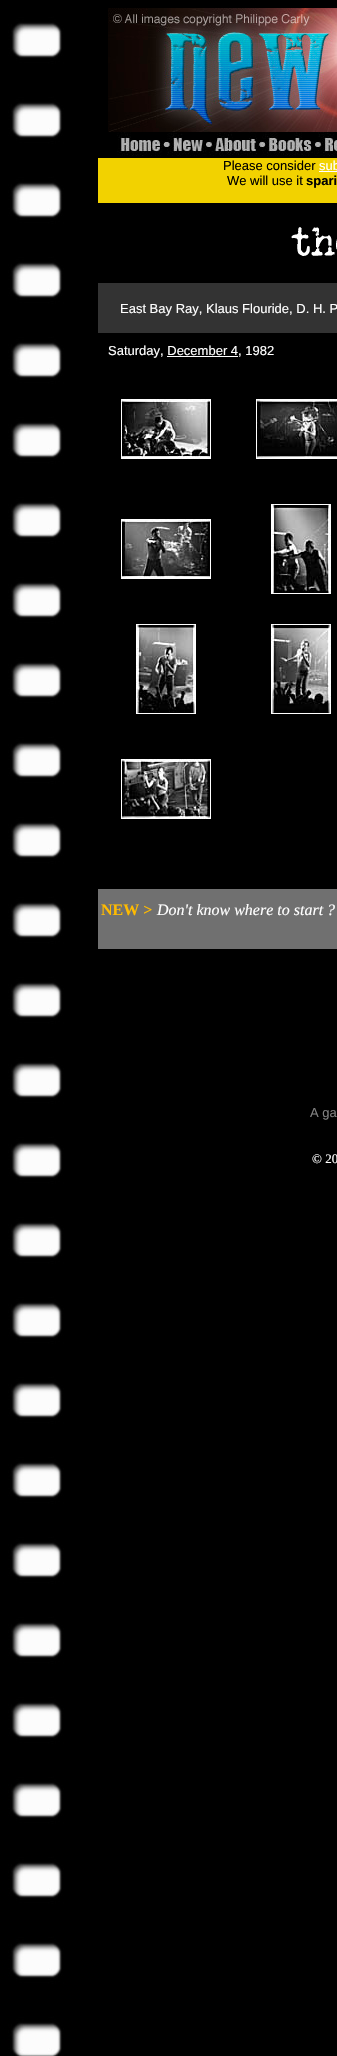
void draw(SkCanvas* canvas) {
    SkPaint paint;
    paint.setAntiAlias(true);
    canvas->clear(0xFFFFFFFF);
    canvas->drawImageRect(SkImages::DeferredFromEncodedData(SkData::MakeFromFileName("img1.png")), SkRect::MakeXYWH(0, 0, 337, 2056), SkSamplingOptions());
    canvas->drawImageRect(SkImages::DeferredFromEncodedData(SkData::MakeFromFileName("img2.png")), SkRect::MakeXYWH(108, 8, 229, 124), SkSamplingOptions());
    canvas->drawImageRect(SkImages::DeferredFromEncodedData(SkData::MakeFromFileName("img3.png")), SkRect::MakeXYWH(117, 132, 50, 24), SkSamplingOptions());
    canvas->drawImageRect(SkImages::DeferredFromEncodedData(SkData::MakeFromFileName("img4.png")), SkRect::MakeXYWH(167, 133, 42, 23), SkSamplingOptions());
    canvas->drawImageRect(SkImages::DeferredFromEncodedData(SkData::MakeFromFileName("img5.png")), SkRect::MakeXYWH(209, 132, 53, 24), SkSamplingOptions());
    canvas->drawImageRect(SkImages::DeferredFromEncodedData(SkData::MakeFromFileName("img6.png")), SkRect::MakeXYWH(262, 132, 56, 24), SkSamplingOptions());
    canvas->drawImageRect(SkImages::DeferredFromEncodedData(SkData::MakeFromFileName("img7.png")), SkRect::MakeXYWH(318, 132, 19, 24), SkSamplingOptions());
    paint.setColor(0xFFF2D200);
    canvas->drawRect(SkRect::MakeXYWH(98, 158, 239, 45), paint);
    SkFont font1(fontMgr->matchFamilyStyle("Liberation Sans", SkFontStyle::Normal()), 13);
    font1.setSubpixel(true);
    paint.setColor(0xFF000000);
    canvas->drawString("Please consider", 223, 170, font1, paint);
    paint.setColor(0xFFFFFFFF);
    canvas->drawString("sub", 319, 170, font1, paint);
    canvas->drawRect(SkRect::MakeXYWH(319, 171, 18, 1), paint);
    paint.setColor(0xFF000000);
    canvas->drawString("We will use it", 227, 185, font1, paint);
    SkFont font2(fontMgr->matchFamilyStyle("Liberation Sans", SkFontStyle::Bold()), 13);
    font2.setSubpixel(true);
    canvas->drawString("spari", 306, 185, font2, paint);
    canvas->drawImageRect(SkImages::DeferredFromEncodedData(SkData::MakeFromFileName("img8.png")), SkRect::MakeXYWH(291, 227, 46, 29), SkSamplingOptions());
    paint.setColor(0xFF333333);
    canvas->drawRect(SkRect::MakeXYWH(98, 283, 239, 50), paint);
    paint.setColor(0xFFFFFFFF);
    canvas->drawString("East Bay Ray, Klaus Flouride, D. H. P", 120, 313, font1, paint);
    canvas->drawString("Saturday, December 4, 1982", 108, 355, font1, paint);
    canvas->drawRect(SkRect::MakeXYWH(167, 356, 71, 1), paint);
    canvas->drawImageRect(SkImages::DeferredFromEncodedData(SkData::MakeFromFileName("img9.png")), SkRect::MakeXYWH(121, 399, 90, 60), SkSamplingOptions());
    canvas->drawImageRect(SkImages::DeferredFromEncodedData(SkData::MakeFromFileName("img10.png")), SkRect::MakeXYWH(256, 399, 81, 60), SkSamplingOptions());
    canvas->drawImageRect(SkImages::DeferredFromEncodedData(SkData::MakeFromFileName("img11.png")), SkRect::MakeXYWH(121, 519, 90, 60), SkSamplingOptions());
    canvas->drawImageRect(SkImages::DeferredFromEncodedData(SkData::MakeFromFileName("img12.png")), SkRect::MakeXYWH(271, 504, 60, 90), SkSamplingOptions());
    canvas->drawImageRect(SkImages::DeferredFromEncodedData(SkData::MakeFromFileName("img13.png")), SkRect::MakeXYWH(136, 624, 60, 90), SkSamplingOptions());
    canvas->drawImageRect(SkImages::DeferredFromEncodedData(SkData::MakeFromFileName("img14.png")), SkRect::MakeXYWH(271, 624, 60, 90), SkSamplingOptions());
    canvas->drawImageRect(SkImages::DeferredFromEncodedData(SkData::MakeFromFileName("img15.png")), SkRect::MakeXYWH(121, 759, 90, 60), SkSamplingOptions());
    paint.setColor(0xFF707070);
    canvas->drawRect(SkRect::MakeXYWH(98, 889, 239, 60), paint);
    SkFont font3(fontMgr->matchFamilyStyle("Liberation Serif", SkFontStyle::Bold()), 16);
    font3.setSubpixel(true);
    paint.setColor(0xFFFFBB00);
    canvas->drawString("NEW >", 101, 915, font3, paint);
    SkFont font4(fontMgr->matchFamilyStyle("Liberation Serif", SkFontStyle::Italic()), 16);
    font4.setSubpixel(true);
    paint.setColor(0xFFFFFFFF);
    canvas->drawString("Don't know where to start ?", 157, 915, font4, paint);
    paint.setColor(0xFF808080);
    canvas->drawString("A ga", 310, 1117, font1, paint);
    SkFont font5(fontMgr->matchFamilyStyle("Liberation Serif", SkFontStyle::Normal()), 13);
    font5.setSubpixel(true);
    paint.setColor(0xFFFFFFFF);
    canvas->drawString("© 20", 312, 1163, font5, paint);
}
